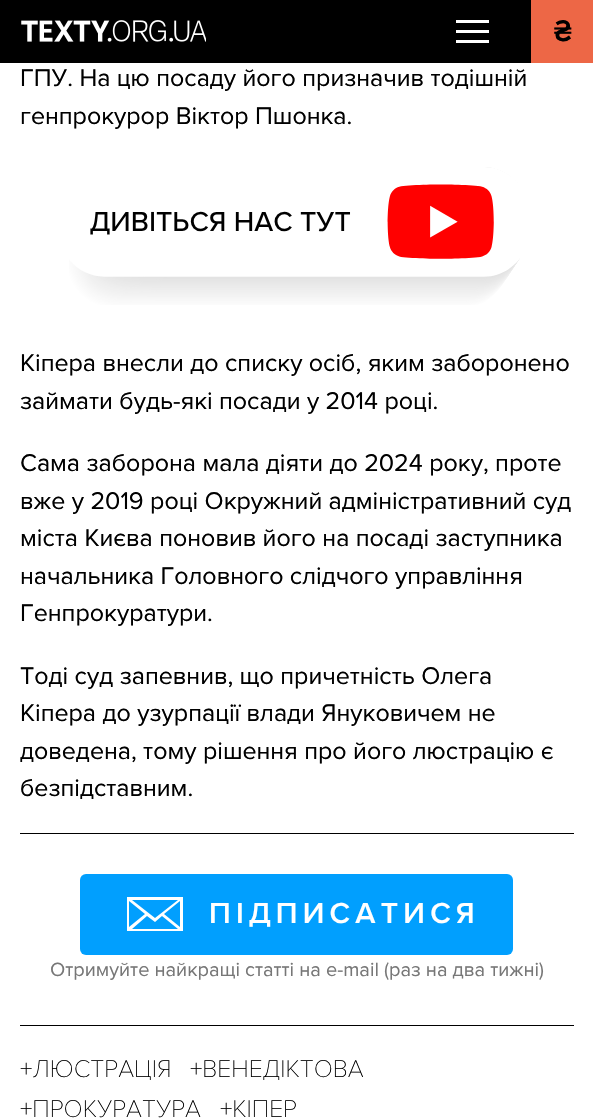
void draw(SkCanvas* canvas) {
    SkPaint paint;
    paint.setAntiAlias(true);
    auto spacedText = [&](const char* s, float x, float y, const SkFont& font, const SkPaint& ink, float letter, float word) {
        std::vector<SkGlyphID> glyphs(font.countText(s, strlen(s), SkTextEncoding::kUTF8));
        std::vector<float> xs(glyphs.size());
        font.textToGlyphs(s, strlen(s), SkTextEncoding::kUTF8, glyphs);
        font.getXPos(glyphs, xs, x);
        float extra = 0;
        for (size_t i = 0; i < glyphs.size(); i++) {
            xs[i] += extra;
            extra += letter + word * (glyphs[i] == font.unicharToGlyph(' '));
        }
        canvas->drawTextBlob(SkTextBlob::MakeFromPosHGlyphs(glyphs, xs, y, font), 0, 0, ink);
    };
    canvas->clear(0xFFFFFFFF);
    paint.setColor(0xFF000000);
    canvas->drawRect(SkRect::MakeXYWH(0, 0, 531, 63), paint);
    canvas->drawImageRect(SkImages::DeferredFromEncodedData(SkData::MakeFromFileName("img1.png")), SkRect::MakeXYWH(21, 20, 185, 22), SkSamplingOptions());
    paint.setColor(0xFFFFFFFF);
    canvas->drawRect(SkRect::MakeXYWH(456, 30, 33, 3), paint);
    canvas->drawRect(SkRect::MakeXYWH(456, 20, 33, 3), paint);
    canvas->drawRect(SkRect::MakeXYWH(456, 40, 33, 3), paint);
    paint.setColor(0xFFED6746);
    canvas->drawRect(SkRect::MakeXYWH(531, 0, 62, 63), paint);
    SkFont font1(fontMgr->matchFamilyStyle("Proxima Nova", SkFontStyle(600, SkFontStyle::kNormal_Width, SkFontStyle::kUpright_Slant)), 31);
    font1.setSubpixel(true);
    paint.setColor(0xFF000000);
    canvas->drawString("₴", 554, 41, font1, paint);
    SkFont font2(fontMgr->matchFamilyStyle("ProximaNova", SkFontStyle::Normal()), 25);
    font2.setSubpixel(true);
    canvas->drawString("ГПУ. На цю посаду його призначив тодішній", 20, 86, font2, paint);
    canvas->drawString("генпрокурор Віктор Пшонка.", 20, 124, font2, paint);
    canvas->drawImageRect(SkImages::DeferredFromEncodedData(SkData::MakeFromFileName("img2.png")), SkRect::MakeXYWH(69, 167, 451, 138), SkSamplingOptions());
    canvas->drawString("Кіпера внесли до списку осіб, яким заборонено", 20, 371, font2, paint);
    canvas->drawString("займати будь-які посади у 2014 році.", 20, 409, font2, paint);
    canvas->drawString("Сама заборона мала діяти до 2024 року, проте", 20, 471, font2, paint);
    canvas->drawString("вже у 2019 році Окружний адміністративний суд", 20, 509, font2, paint);
    canvas->drawString("міста Києва поновив його на посаді заступника", 20, 546, font2, paint);
    canvas->drawString("начальника Головного слідчого управління", 20, 584, font2, paint);
    canvas->drawString("Генпрокуратури.", 20, 621, font2, paint);
    canvas->drawString("Тоді суд запевнив, що причетність Олега", 20, 684, font2, paint);
    canvas->drawString("Кіпера до узурпації влади Януковичем не", 20, 721, font2, paint);
    canvas->drawString("доведена, тому рішення про його люстрацію є", 20, 759, font2, paint);
    canvas->drawString("безпідставним.", 20, 796, font2, paint);
    canvas->drawRect(SkRect::MakeXYWH(20, 833, 554, 1), paint);
    canvas->drawRect(SkRect::MakeXYWH(20, 1025, 554, 1), paint);
    paint.setColor(0xFF019FFE);
    canvas->drawRoundRect(SkRect::MakeXYWH(80, 874, 433, 81), 6, 6, paint);
    paint.setColor(0xFFFFFFFF);
    canvas->drawPath(SkPathBuilder().moveTo(127, 897).lineTo(127, 931).lineTo(183, 931).lineTo(183, 897).close().moveTo(155, 918).lineTo(132, 900).lineTo(178, 900).close().moveTo(145, 914).lineTo(129, 927).lineTo(129, 901).close().moveTo(147, 916).lineTo(155, 922).lineTo(162, 916).lineTo(178, 929).lineTo(132, 929).close().moveTo(164, 914).lineTo(180, 901).lineTo(180, 927).close().detach(), paint);
    SkFont font3(fontMgr->matchFamilyStyle("Proxima Nova", SkFontStyle(600, SkFontStyle::kNormal_Width, SkFontStyle::kUpright_Slant)), 30);
    font3.setSubpixel(true);
    spacedText("ПІДПИСАТИСЯ", 209, 923, font3, paint, 5.25f, 0);
    SkFont font4(fontMgr->matchFamilyStyle("ProximaNova", SkFontStyle::Normal()), 20);
    font4.setSubpixel(true);
    paint.setColor(0xFF777777);
    canvas->drawString("Отримуйте найкращі статті на e-mail (раз на два тижні)", 50, 976, font4, paint);
    SkFont font5(fontMgr->matchFamilyStyle("Proxima Nova", SkFontStyle(100, SkFontStyle::kNormal_Width, SkFontStyle::kUpright_Slant)), 25);
    font5.setSubpixel(true);
    paint.setColor(0xFF000000);
    canvas->drawString("+ЛЮСТРАЦІЯ", 20, 1077, font5, paint);
    canvas->drawString("+ВЕНЕДІКТОВА", 190, 1077, font5, paint);
    canvas->drawString("+ПРОКУРАТУРА", 20, 1117, font5, paint);
    canvas->drawString("+КІПЕР", 220, 1117, font5, paint);
}
